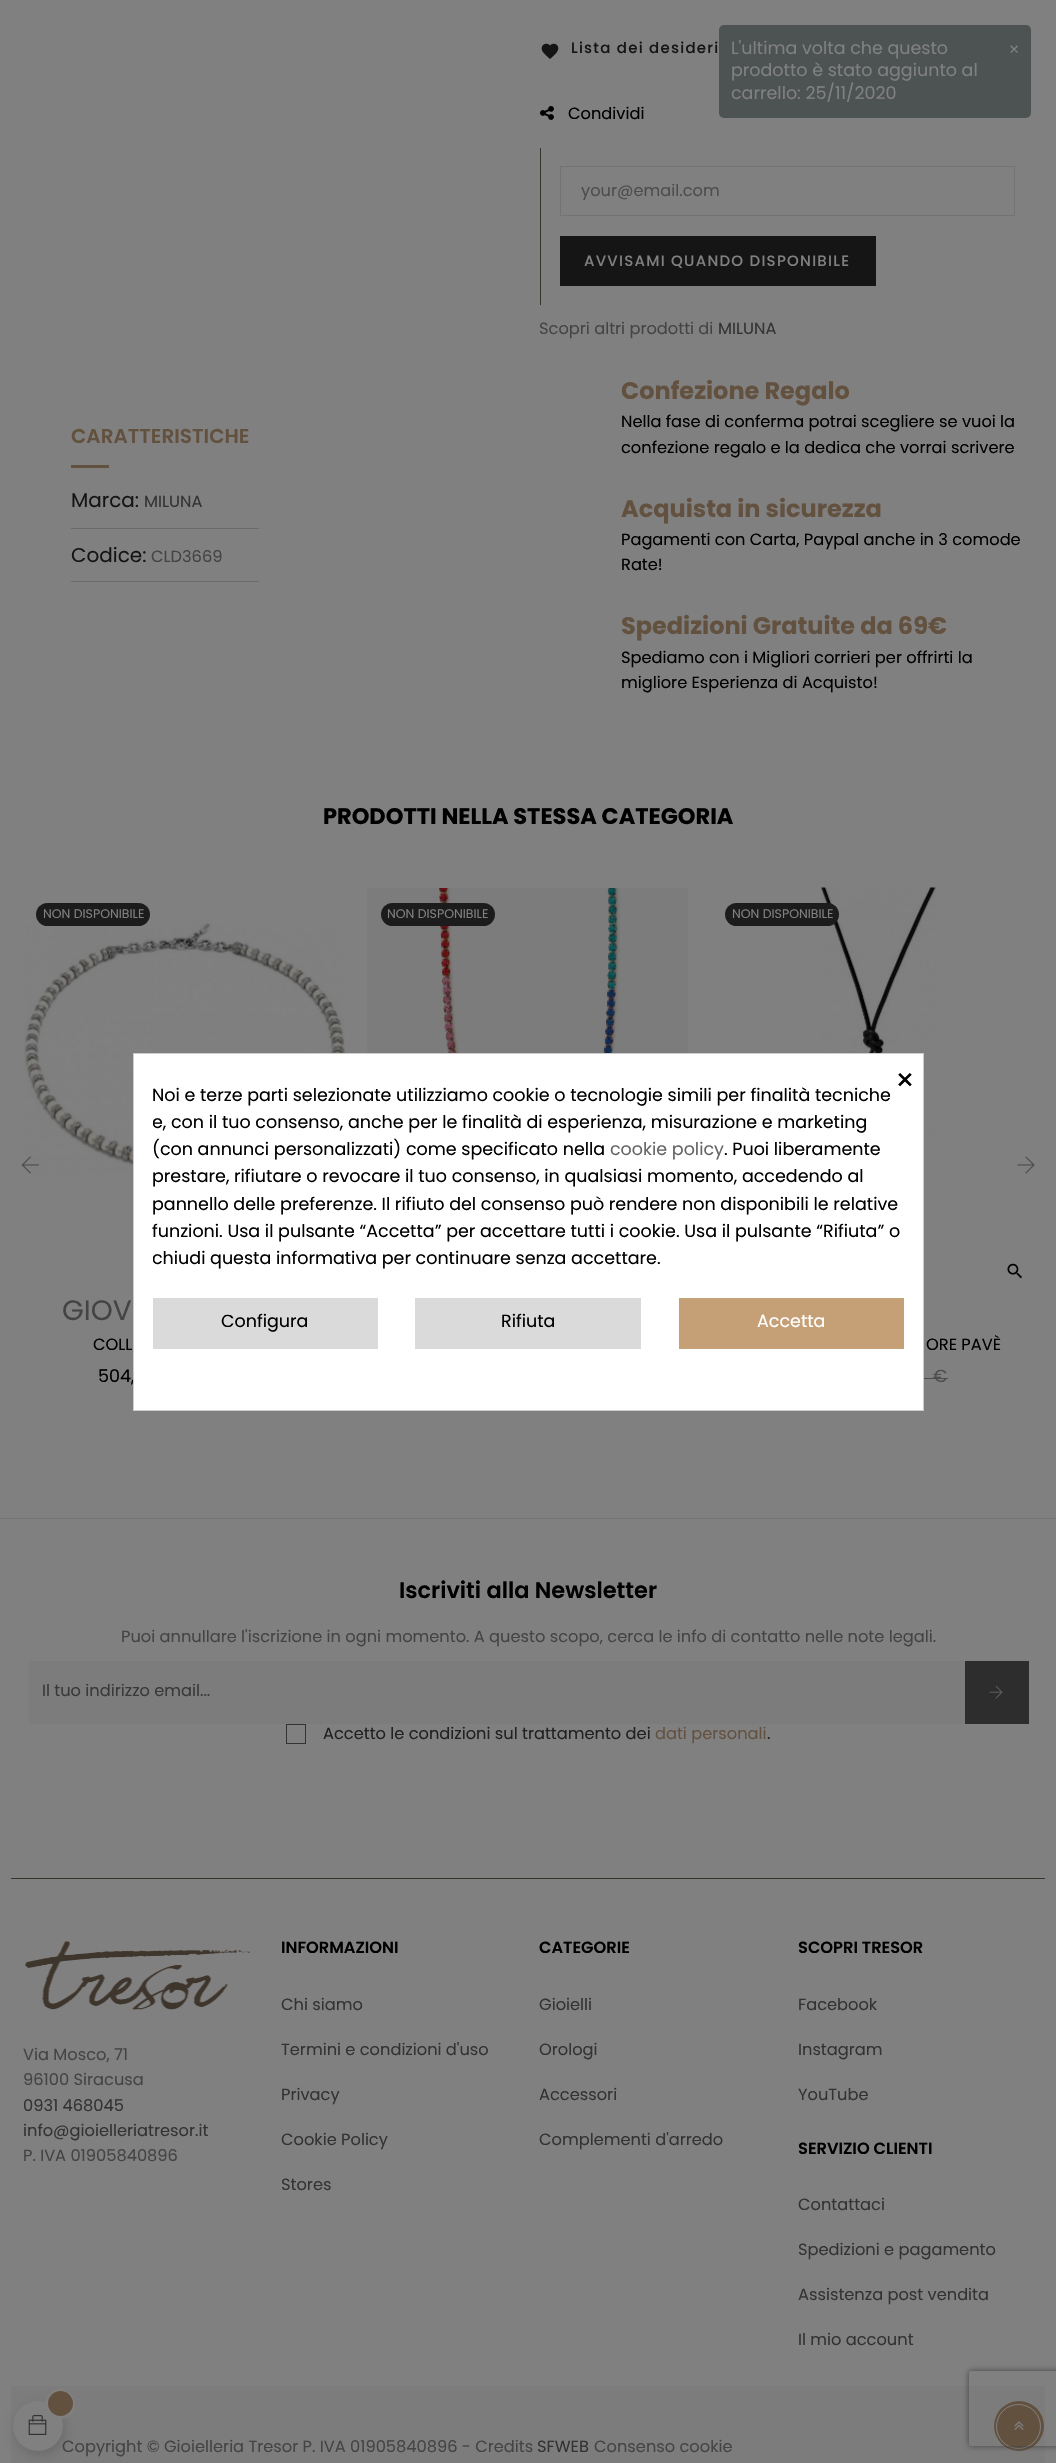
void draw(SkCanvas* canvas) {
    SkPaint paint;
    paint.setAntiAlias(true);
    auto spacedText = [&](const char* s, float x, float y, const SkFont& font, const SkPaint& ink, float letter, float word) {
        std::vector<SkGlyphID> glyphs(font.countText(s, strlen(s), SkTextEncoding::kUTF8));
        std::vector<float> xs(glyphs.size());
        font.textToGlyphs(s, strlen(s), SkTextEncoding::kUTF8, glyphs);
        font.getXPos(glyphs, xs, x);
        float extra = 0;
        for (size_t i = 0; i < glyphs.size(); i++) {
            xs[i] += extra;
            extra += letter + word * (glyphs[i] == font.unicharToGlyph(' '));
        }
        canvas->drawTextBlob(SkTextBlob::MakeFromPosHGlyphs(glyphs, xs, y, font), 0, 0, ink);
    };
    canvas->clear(0xFF808080);
    paint.setColor(0xFF4D5252);
    canvas->drawRoundRect(SkRect::MakeXYWH(719, 25, 312, 93), 5, 5, paint);
    SkFont font1(fontMgr->matchFamilyStyle("Poppins", SkFontStyle::Normal()), 17.5f);
    font1.setSubpixel(true);
    paint.setColor(0xFF808080);
    canvas->drawString("L'ultima volta che questo", 731, 54, font1, paint);
    canvas->drawString("prodotto è stato aggiunto al", 731, 76, font1, paint);
    canvas->drawString("carrello: 25/11/2020", 731, 99, font1, paint);
    SkFont font2(fontMgr->matchFamilyStyle("Liberation Sans", SkFontStyle::Normal()), 17.5f);
    font2.setSubpixel(true);
    canvas->drawString("×", 1009, 55, font2, paint);
    canvas->drawImageRect(SkImages::DeferredFromEncodedData(SkData::MakeFromFileName("img1.png")), SkRect::MakeXYWH(541, 43, 18, 16), SkSamplingOptions());
    SkFont font3(fontMgr->matchFamilyStyle("Poppins", SkFontStyle(500, SkFontStyle::kNormal_Width, SkFontStyle::kUpright_Slant)), 15);
    font3.setSubpixel(true);
    paint.setColor(0xFF151515);
    spacedText("Lista dei desideri", 571, 53, font3, paint, 1.25f, 0);
    canvas->drawImageRect(SkImages::DeferredFromEncodedData(SkData::MakeFromFileName("img2.png")), SkRect::MakeXYWH(540, 106, 14, 14), SkSamplingOptions());
    SkFont font4(fontMgr->matchFamilyStyle("Poppins", SkFontStyle::Normal()), 16.25f);
    font4.setSubpixel(true);
    paint.setColor(0xFF000000);
    canvas->drawString("Condividi", 568, 119, font4, paint);
    paint.setColor(0xFF39332D);
    canvas->drawRect(SkRect::MakeXYWH(540, 148, 1, 157), paint);
    paint.setStyle(SkPaint::kStroke_Style);
    paint.setStrokeWidth(1);
    paint.setColor(0xFF737373);
    canvas->drawRect(SkRect::MakeXYWH(560.5f, 166.5f, 454, 49), paint);
    canvas->save();
    canvas->clipRect(SkRect::MakeXYWH(581, 184, 413, 16));
    paint.setStyle(SkPaint::kFill_Style);
    paint.setColor(0xFF4D4D4D);
    canvas->drawString("your@email.com", 581, 196, font4, paint);
    canvas->restore();
    paint.setColor(0xFF151515);
    canvas->drawRect(SkRect::MakeXYWH(560, 236, 316, 50), paint);
    paint.setColor(0xFF808080);
    spacedText("AVVISAMI QUANDO DISPONIBILE", 584, 266, font3, paint, 1.25f, 0);
    paint.setColor(0xFF444444);
    canvas->drawString("Scopri altri prodotti di", 539, 334, font4, paint);
    paint.setColor(0xFF333333);
    canvas->drawString("MILUNA", 718, 334, font4, paint);
    SkFont font5(fontMgr->matchFamilyStyle("Poppins", SkFontStyle(600, SkFontStyle::kNormal_Width, SkFontStyle::kUpright_Slant)), 20);
    font5.setSubpixel(true);
    paint.setColor(0xFF635140);
    canvas->drawString("CARATTERISTICHE", 71, 443, font5, paint);
    canvas->drawRect(SkRect::MakeXYWH(71, 465, 38, 3), paint);
    paint.setColor(0xFF6B6B6B);
    canvas->drawRect(SkRect::MakeXYWH(71, 528, 188, 1), paint);
    SkFont font6(fontMgr->matchFamilyStyle("Poppins", SkFontStyle::Normal()), 20);
    font6.setSubpixel(true);
    paint.setColor(0xFF151515);
    canvas->drawString("Marca:", 71, 507, font6, paint);
    paint.setColor(0xFF333333);
    canvas->drawString("MILUNA", 144, 507, font4, paint);
    paint.setColor(0xFF6B6B6B);
    canvas->drawRect(SkRect::MakeXYWH(71, 581, 188, 1), paint);
    paint.setColor(0xFF151515);
    canvas->drawString("Codice:", 71, 562, font6, paint);
    paint.setColor(0xFF444444);
    canvas->drawString("CLD3669", 151, 562, font4, paint);
    SkFont font7(fontMgr->matchFamilyStyle("Poppins", SkFontStyle::Bold()), 24);
    font7.setSubpixel(true);
    paint.setColor(0xFF635140);
    canvas->drawString("Confezione Regalo", 621, 399, font7, paint);
    paint.setColor(0xFF000000);
    canvas->drawString("Nella fase di conferma potrai scegliere se vuoi la", 621, 427, font4, paint);
    canvas->drawString("confezione regalo e la dedica che vorrai scrivere", 621, 453, font4, paint);
    paint.setColor(0xFF635140);
    canvas->drawString("Acquista in sicurezza", 621, 517, font7, paint);
    paint.setColor(0xFF000000);
    canvas->drawString("Pagamenti con Carta, Paypal anche in 3 comode", 621, 545, font4, paint);
    canvas->drawString("Rate!", 621, 570, font4, paint);
    paint.setColor(0xFF635140);
    canvas->drawString("Spedizioni Gratuite da 69€", 621, 634, font7, paint);
    paint.setColor(0xFF000000);
    canvas->drawString("Spediamo con i Migliori corrieri per offrirti la", 621, 663, font4, paint);
    canvas->drawString("migliore Esperienza di Acquisto!", 621, 688, font4, paint);
    SkFont font8(fontMgr->matchFamilyStyle("Poppins", SkFontStyle::Bold()), 22.5f);
    font8.setSubpixel(true);
    canvas->drawString("PRODOTTI NELLA STESSA CATEGORIA", 323, 824, font8, paint);
    canvas->drawImageRect(SkImages::DeferredFromEncodedData(SkData::MakeFromFileName("img3.png")), SkRect::MakeXYWH(24, 923, 321, 252), SkSamplingOptions());
    paint.setColor(0xFF1C1C1C);
    canvas->drawRoundRect(SkRect::MakeXYWH(36, 903, 114, 23), 11.5f, 11.5f, paint);
    SkFont font9(fontMgr->matchFamilyStyle("Poppins", SkFontStyle::Normal()), 12.5f);
    font9.setSubpixel(true);
    paint.setColor(0xFF808080);
    canvas->drawString("NON DISPONIBILE", 43, 918, font9, paint);
    SkFont font10(fontMgr->matchFamilyStyle("Poppins", SkFontStyle::Normal()), 28);
    font10.setSubpixel(true);
    paint.setColor(0xFF444444);
    canvas->drawString("GIOV", 62, 1320, font10, paint);
    paint.setColor(0xFF000000);
    canvas->drawString("COLL", 93, 1350, font4, paint);
    canvas->drawString("504,", 98, 1382, font1, paint);
    canvas->drawImageRect(SkImages::DeferredFromEncodedData(SkData::MakeFromFileName("img4.png")), SkRect::MakeXYWH(367, 888, 321, 165), SkSamplingOptions());
    paint.setColor(0xFF1C1C1C);
    canvas->drawRoundRect(SkRect::MakeXYWH(381, 903, 114, 23), 11.5f, 11.5f, paint);
    paint.setColor(0xFF808080);
    canvas->drawString("NON DISPONIBILE", 387, 918, font9, paint);
    canvas->drawImageRect(SkImages::DeferredFromEncodedData(SkData::MakeFromFileName("img5.png")), SkRect::MakeXYWH(821, 887, 115, 283), SkSamplingOptions());
    paint.setColor(0xFF1C1C1C);
    canvas->drawRoundRect(SkRect::MakeXYWH(725, 903, 114, 23), 11.5f, 11.5f, paint);
    paint.setColor(0xFF808080);
    canvas->drawString("NON DISPONIBILE", 732, 918, font9, paint);
    canvas->drawImageRect(SkImages::DeferredFromEncodedData(SkData::MakeFromFileName("img6.png")), SkRect::MakeXYWH(1007, 1263, 15, 16), SkSamplingOptions());
    paint.setColor(0xFF000000);
    canvas->drawString("ORE PAVÈ", 926, 1350, font4, paint);
    paint.setColor(0xFF4D4D4D);
    canvas->drawString("€", 933, 1382, font1, paint);
    canvas->drawRect(SkRect::MakeXYWH(924, 1378, 24, 1), paint);
    canvas->drawImageRect(SkImages::DeferredFromEncodedData(SkData::MakeFromFileName("img7.png")), SkRect::MakeXYWH(21, 1156, 18, 18), SkSamplingOptions());
    canvas->drawImageRect(SkImages::DeferredFromEncodedData(SkData::MakeFromFileName("img8.png")), SkRect::MakeXYWH(1017, 1156, 18, 18), SkSamplingOptions());
    paint.setColor(0xFF757575);
    canvas->drawRect(SkRect::MakeXYWH(0, 1518, 1056, 1), paint);
    SkFont font11(fontMgr->matchFamilyStyle("Poppins", SkFontStyle(600, SkFontStyle::kNormal_Width, SkFontStyle::kUpright_Slant)), 22.5f);
    font11.setSubpixel(true);
    paint.setColor(0xFF000000);
    canvas->drawString("Iscriviti alla Newsletter", 399, 1598, font11, paint);
    paint.setColor(0xFF444444);
    canvas->drawString("Puoi annullare l'iscrizione in ogni momento. A questo scopo, cerca le info di contatto nelle note legali.", 121, 1642, font4, paint);
    paint.setColor(0xFF7C7C7C);
    canvas->drawRect(SkRect::MakeXYWH(29, 1661, 936, 63), paint);
    canvas->save();
    canvas->clipRect(SkRect::MakeXYWH(43, 1684, 910, 16));
    paint.setColor(0xFF393939);
    canvas->drawString("Il tuo indirizzo email...", 42, 1696, font4, paint);
    canvas->restore();
    paint.setColor(0xFF2D2D2D);
    canvas->drawRect(SkRect::MakeXYWH(965, 1661, 64, 63), paint);
    canvas->drawImageRect(SkImages::DeferredFromEncodedData(SkData::MakeFromFileName("img9.png")), SkRect::MakeXYWH(989, 1685, 14, 14), SkSamplingOptions());
    paint.setStyle(SkPaint::kStroke_Style);
    paint.setColor(0xFF333333);
    canvas->drawRect(SkRect::MakeXYWH(286.5f, 1724.5f, 19, 19), paint);
    paint.setStyle(SkPaint::kFill_Style);
    paint.setColor(0xFF212121);
    canvas->drawString("Accetto le condizioni sul trattamento dei", 323, 1739, font4, paint);
    paint.setColor(0xFF635140);
    canvas->drawString("dati personali", 655, 1739, font4, paint);
    paint.setColor(0xFF212121);
    canvas->drawString(".", 767, 1739, font4, paint);
    paint.setColor(0xFF39332D);
    canvas->drawRect(SkRect::MakeXYWH(11, 1878, 1034, 1), paint);
    canvas->drawImageRect(SkImages::DeferredFromEncodedData(SkData::MakeFromFileName("img10.png")), SkRect::MakeXYWH(25, 1941, 232, 69), SkSamplingOptions());
    paint.setColor(0xFF444444);
    canvas->drawString("Via Mosco, 71", 23, 2060, font4, paint);
    canvas->drawString("96100 Siracusa", 23, 2085, font4, paint);
    paint.setColor(0xFF333333);
    canvas->drawString("0931 468045", 23, 2111, font4, paint);
    canvas->drawString("info@gioielleriatresor.it", 23, 2136, font4, paint);
    paint.setColor(0xFF444444);
    canvas->drawString("P. IVA 01905840896", 23, 2161, font4, paint);
    SkFont font12(fontMgr->matchFamilyStyle("Poppins", SkFontStyle(600, SkFontStyle::kNormal_Width, SkFontStyle::kUpright_Slant)), 16.25f);
    font12.setSubpixel(true);
    paint.setColor(0xFF000000);
    canvas->drawString("INFORMAZIONI", 281, 1953, font12, paint);
    paint.setColor(0xFF333333);
    canvas->drawString("Chi siamo", 281, 2010, font4, paint);
    canvas->drawString("Termini e condizioni d'uso", 281, 2055, font4, paint);
    canvas->drawString("Privacy", 281, 2100, font4, paint);
    canvas->drawString("Cookie Policy", 281, 2145, font4, paint);
    canvas->drawString("Stores", 281, 2190, font4, paint);
    paint.setColor(0xFF000000);
    canvas->drawString("CATEGORIE", 539, 1953, font12, paint);
    paint.setColor(0xFF333333);
    canvas->drawString("Gioielli", 539, 2010, font4, paint);
    canvas->drawString("Orologi", 539, 2055, font4, paint);
    canvas->drawString("Accessori", 539, 2100, font4, paint);
    canvas->drawString("Complementi d'arredo", 539, 2145, font4, paint);
    paint.setColor(0xFF000000);
    canvas->drawString("SCOPRI TRESOR", 798, 1953, font12, paint);
    paint.setColor(0xFF333333);
    canvas->drawString("Facebook", 798, 2010, font4, paint);
    canvas->drawString("Instagram", 798, 2055, font4, paint);
    canvas->drawString("YouTube", 798, 2100, font4, paint);
    paint.setColor(0xFF000000);
    canvas->drawString("SERVIZIO CLIENTI", 798, 2154, font12, paint);
    paint.setColor(0xFF333333);
    canvas->drawString("Contattaci", 798, 2210, font4, paint);
    canvas->drawString("Spedizioni e pagamento", 798, 2255, font4, paint);
    canvas->drawString("Assistenza post vendita", 798, 2300, font4, paint);
    canvas->drawString("Il mio account", 798, 2345, font4, paint);
    paint.setColor(0xFF7C7C7C);
    canvas->drawRect(SkRect::MakeXYWH(11, 2386, 1034, 77), paint);
    paint.setColor(0xFF635140);
    canvas->drawCircle(1019, 2426, 25, paint);
    paint.setStyle(SkPaint::kStroke_Style);
    paint.setColor(0xFF808080);
    canvas->drawCircle(1018.5f, 2426.5f, 22, paint);
    canvas->drawImageRect(SkImages::DeferredFromEncodedData(SkData::MakeFromFileName("img11.png")), SkRect::MakeXYWH(1014, 2421, 10, 9), SkSamplingOptions());
    canvas->save();
    canvas->clipPath(SkPathBuilder(SkPathFillType::kEvenOdd).moveTo(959, 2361).lineTo(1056, 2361).lineTo(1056, 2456).lineTo(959, 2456).close().moveTo(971.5f, 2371).lineTo(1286.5f, 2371).cubicTo(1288, 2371, 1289, 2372, 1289, 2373.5f).lineTo(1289, 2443.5f).cubicTo(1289, 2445, 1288, 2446, 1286.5f, 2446).lineTo(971.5f, 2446).cubicTo(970, 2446, 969, 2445, 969, 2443.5f).lineTo(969, 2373.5f).cubicTo(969, 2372, 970, 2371, 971.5f, 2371).close().detach(), true);
    paint.setStyle(SkPaint::kFill_Style);
    paint.setColor(0xFF404040);
    paint.setMaskFilter(SkMaskFilter::MakeBlur(kNormal_SkBlurStyle, 3));
    canvas->drawRoundRect(SkRect::MakeXYWH(969, 2371, 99, 75), 2.5f, 2.5f, paint);
    paint.setMaskFilter(nullptr);
    canvas->restore();
    paint.setColor(0xFF444444);
    canvas->drawString("Copyright © Gioielleria Tresor P. IVA 01905840896 - Credits", 62, 2452, font4, paint);
    paint.setColor(0xFF333333);
    canvas->drawString("SFWEB", 537, 2452, font4, paint);
    paint.setColor(0xFF444444);
    canvas->drawString("Consenso cookie", 594, 2452, font4, paint);
    paint.setColor(0xFFFFFFFF);
    canvas->drawRect(SkRect::MakeXYWH(133.5f, 1053.5f, 790, 357), paint);
    paint.setStyle(SkPaint::kStroke_Style);
    paint.setColor(0xFFCCCCCC);
    canvas->drawRect(SkRect::MakeXYWH(133.5f, 1053.5f, 790, 357), paint);
    SkFont font13(fontMgr->matchFamilyStyle("Poppins", SkFontStyle::Normal()), 31);
    font13.setSubpixel(true);
    paint.setStyle(SkPaint::kFill_Style);
    paint.setColor(0xFF000000);
    canvas->drawString("×", 895, 1091, font13, paint);
    canvas->drawString("Noi e terze parti selezionate utilizziamo cookie o tecnologie simili per finalità tecniche", 152, 1101, font1, paint);
    canvas->save();
    canvas->clipRect(SkRect::MakeXYWH(153, 1084, 751, 189));
    canvas->drawString("e, con il tuo consenso, anche per le finalità di esperienza, misurazione e marketing", 152, 1128, font1, paint);
    canvas->restore();
    canvas->drawString("(con annunci personalizzati) come specificato nella", 152, 1155, font1, paint);
    paint.setColor(0xFF666666);
    canvas->drawString("cookie policy", 610, 1155, font1, paint);
    paint.setColor(0xFF000000);
    canvas->drawString(". Puoi liberamente", 724, 1155, font1, paint);
    canvas->drawString("prestare, rifiutare o revocare il tuo consenso, in qualsiasi momento, accedendo al", 152, 1182, font1, paint);
    canvas->drawString("pannello delle preferenze. Il rifiuto del consenso può rendere non disponibili le relative", 152, 1210, font1, paint);
    canvas->drawString("funzioni. Usa il pulsante “Accetta” per accettare tutti i cookie. Usa il pulsante “Rifiuta” o", 152, 1237, font1, paint);
    canvas->save();
    canvas->clipRect(SkRect::MakeXYWH(153, 1084, 751, 189));
    canvas->drawString("chiudi questa informativa per continuare senza accettare.", 152, 1264, font1, paint);
    canvas->restore();
    paint.setColor(0xFFDADADA);
    canvas->drawRect(SkRect::MakeXYWH(153, 1298, 225, 51), paint);
    paint.setColor(0xFF000000);
    canvas->drawString("Configura", 221, 1327, font1, paint);
    paint.setColor(0xFFDADADA);
    canvas->drawRect(SkRect::MakeXYWH(415, 1298, 226, 51), paint);
    paint.setColor(0xFF000000);
    canvas->drawString("Rifiuta", 501, 1327, font1, paint);
    paint.setColor(0xFFC59F76);
    canvas->drawRect(SkRect::MakeXYWH(679, 1298, 225, 51), paint);
    paint.setColor(0xFFFFFFFF);
    canvas->drawString("Accetta", 757, 1327, font1, paint);
    paint.setColor(0x26000000);
    paint.setMaskFilter(SkMaskFilter::MakeBlur(kNormal_SkBlurStyle, 6));
    canvas->drawRoundRect(SkRect::MakeXYWH(15, 2405, 50, 50), 25, 25, paint);
    paint.setMaskFilter(nullptr);
    paint.setColor(0xFF808080);
    canvas->drawCircle(38, 2426, 25, paint);
    canvas->drawImageRect(SkImages::DeferredFromEncodedData(SkData::MakeFromFileName("img12.png")), SkRect::MakeXYWH(28, 2415, 19, 20), SkSamplingOptions());
    paint.setStyle(SkPaint::kStroke_Style);
    paint.setStrokeWidth(3);
    canvas->drawCircle(60, 2404, 13.5f, paint);
    paint.setStyle(SkPaint::kFill_Style);
    paint.setColor(0xFF635140);
    canvas->drawCircle(60.5f, 2403.5f, 12.5f, paint);
}
